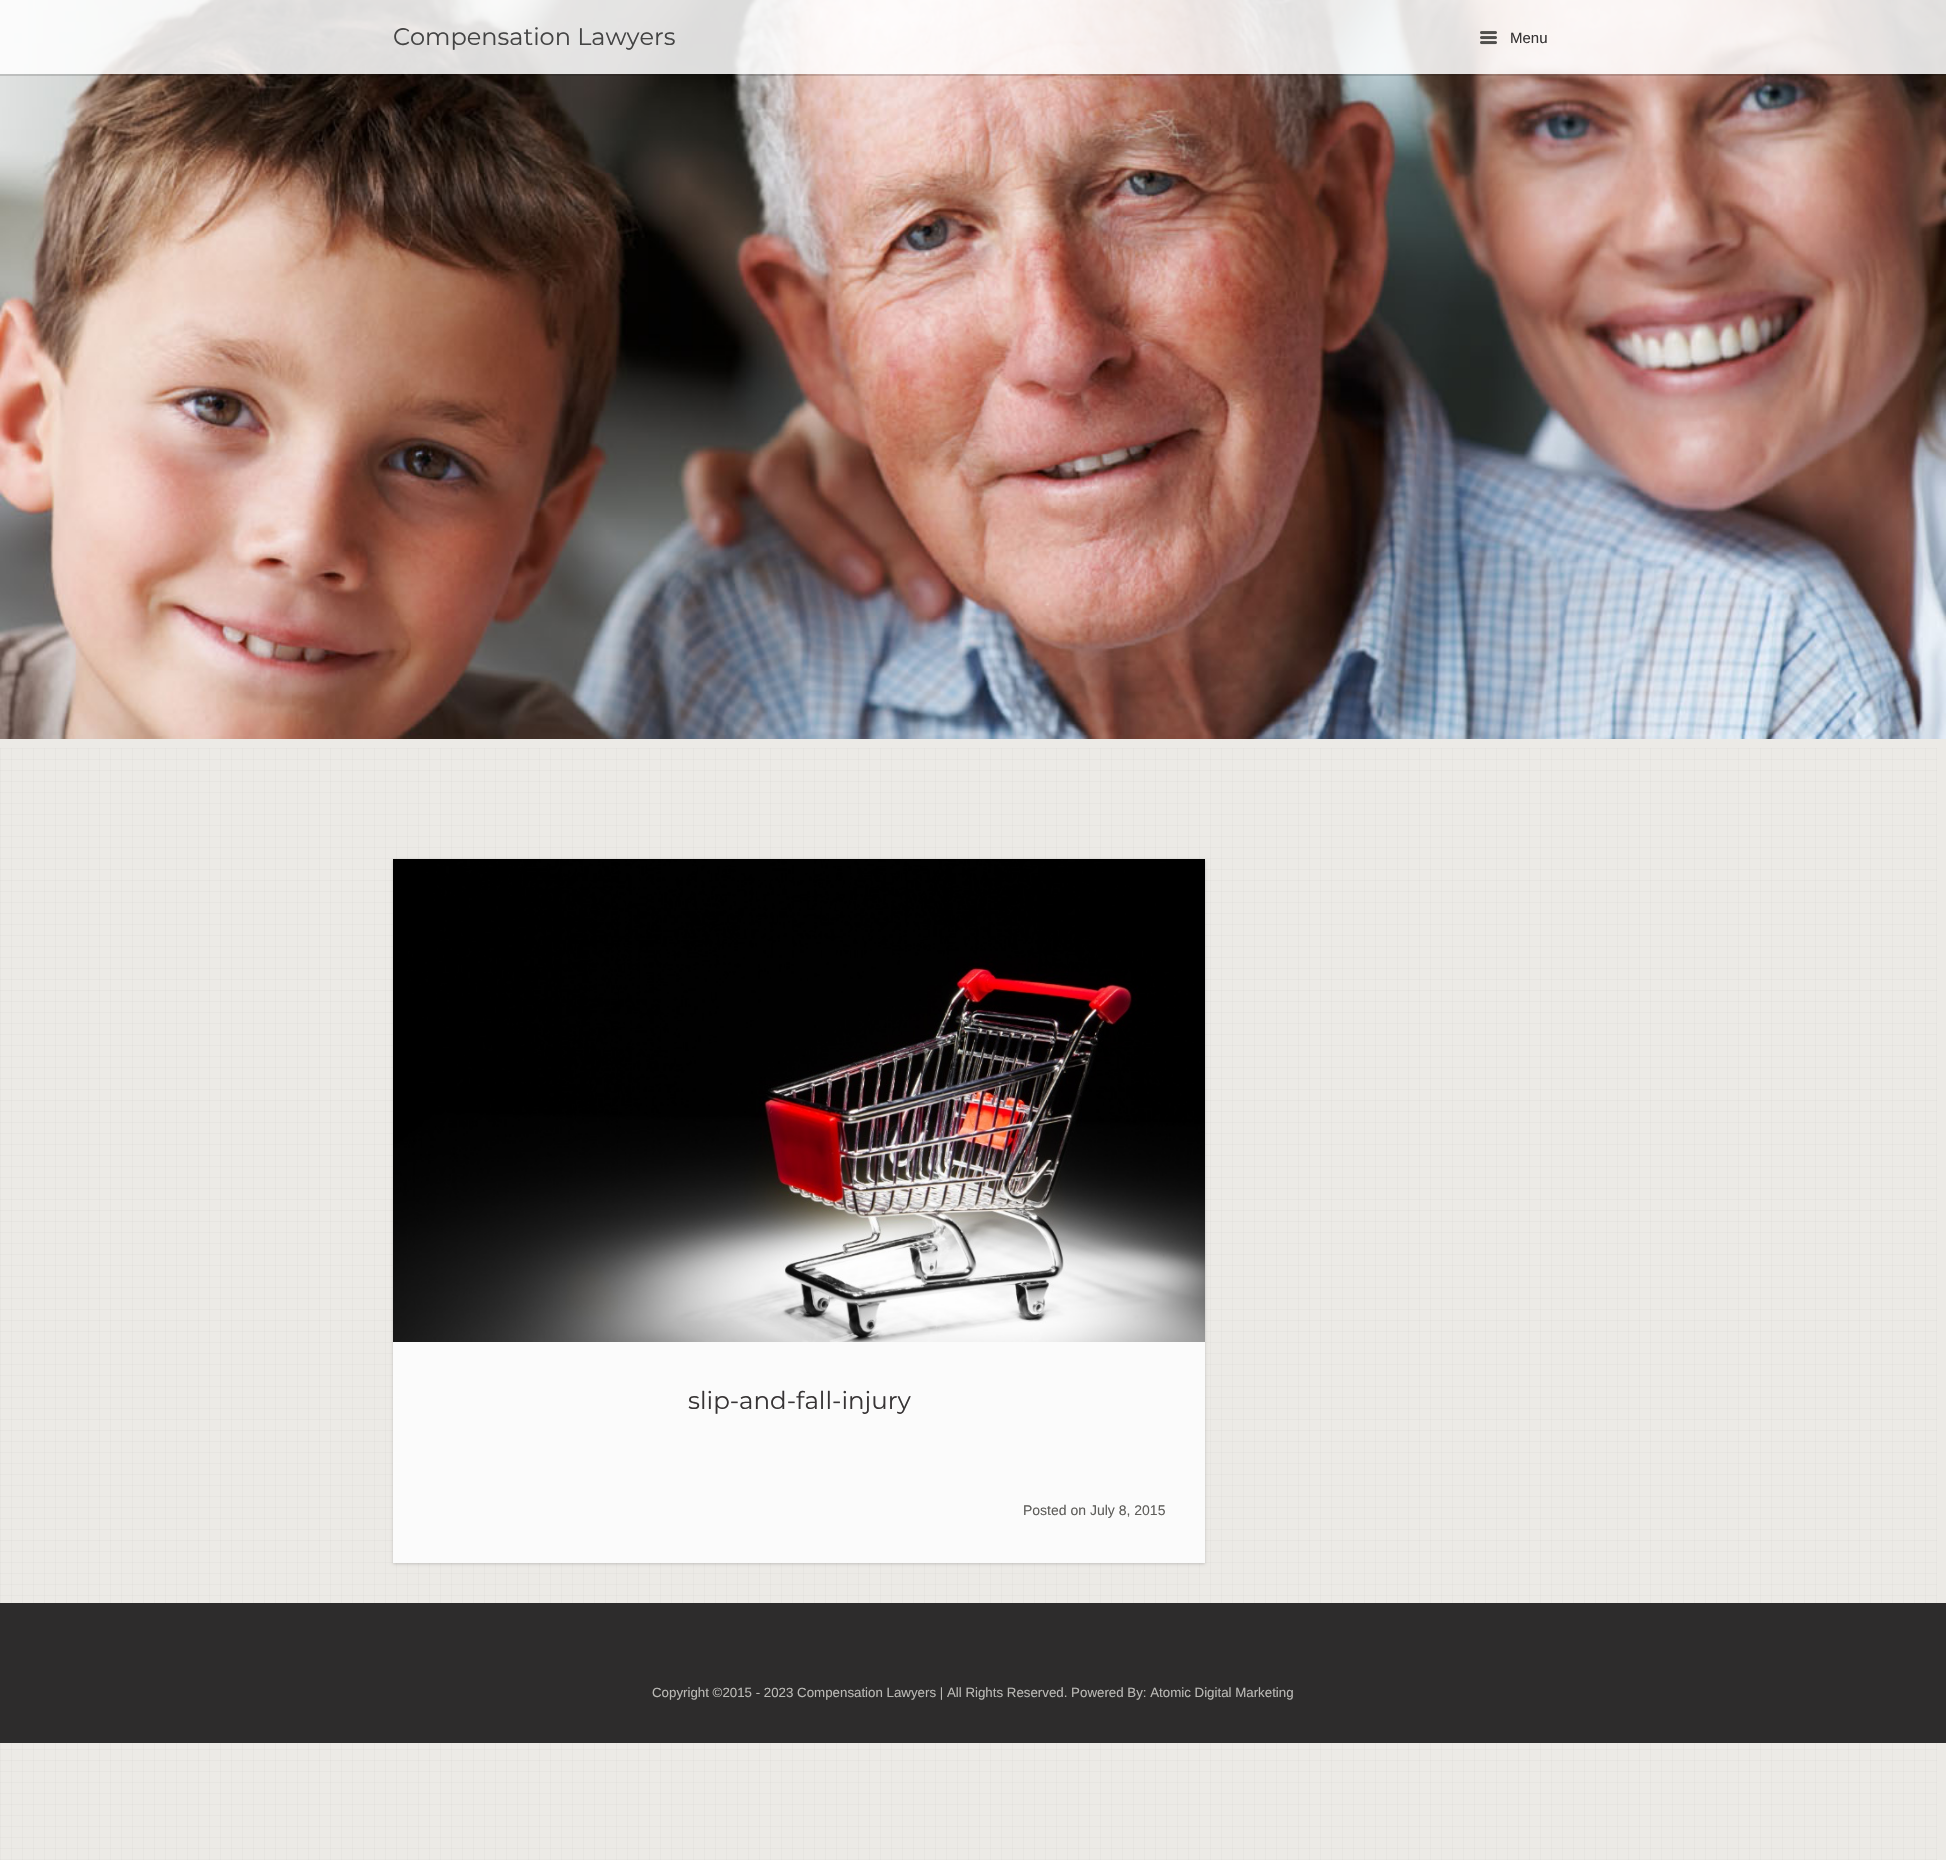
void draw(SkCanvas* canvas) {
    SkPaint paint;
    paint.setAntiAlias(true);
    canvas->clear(0xFFECEAE6);
    canvas->drawImageRect(SkImages::DeferredFromEncodedData(SkData::MakeFromFileName("img1.png")), SkRect::MakeXYWH(0, 748, 1937, 1112), SkSamplingOptions());
    canvas->drawImageRect(SkImages::DeferredFromEncodedData(SkData::MakeFromFileName("img2.png")), SkRect::MakeXYWH(0, 0, 1946, 739), SkSamplingOptions());
    paint.setColor(0x26000000);
    canvas->drawRect(SkRect::MakeXYWH(0, 74, 1946, 2), paint);
    paint.setColor(0xDBFFFFFF);
    canvas->drawRect(SkRect::MakeXYWH(0, 0, 1946, 74), paint);
    SkFont font1(fontMgr->matchFamilyStyle("Montserrat", SkFontStyle(100, SkFontStyle::kNormal_Width, SkFontStyle::kUpright_Slant)), 24);
    font1.setSubpixel(true);
    paint.setColor(0xFF444444);
    canvas->drawString("Compensation Lawyers", 393, 45, font1, paint);
    canvas->drawImageRect(SkImages::DeferredFromEncodedData(SkData::MakeFromFileName("img3.png")), SkRect::MakeXYWH(1480, 31, 17, 14), SkSamplingOptions());
    SkFont font2(fontMgr->matchFamilyStyle("Liberation Sans", SkFontStyle::Normal()), 15);
    font2.setSubpixel(true);
    paint.setColor(0xFF373435);
    canvas->drawString("Menu", 1510, 43, font2, paint);
    paint.setColor(0x2E000000);
    paint.setMaskFilter(SkMaskFilter::MakeBlur(kNormal_SkBlurStyle, 1.5f));
    canvas->drawRect(SkRect::MakeXYWH(393, 860, 812, 704), paint);
    paint.setMaskFilter(nullptr);
    paint.setColor(0xFFFBFBFB);
    canvas->drawRect(SkRect::MakeXYWH(393, 1342, 812, 221), paint);
    canvas->drawImageRect(SkImages::DeferredFromEncodedData(SkData::MakeFromFileName("img4.png")), SkRect::MakeXYWH(393, 859, 812, 483), SkSamplingOptions());
    SkFont font3(fontMgr->matchFamilyStyle("Montserrat", SkFontStyle(100, SkFontStyle::kNormal_Width, SkFontStyle::kUpright_Slant)), 24.5f);
    font3.setSubpixel(true);
    paint.setColor(0xFF373435);
    canvas->drawString("slip-and-fall-injury", 688, 1409, font3, paint);
    SkFont font4(fontMgr->matchFamilyStyle("Liberation Sans", SkFontStyle::Normal()), 14);
    font4.setSubpixel(true);
    paint.setColor(0xFF5E5D5A);
    canvas->drawString("Posted on July 8, 2015", 1023, 1515, font4, paint);
    paint.setColor(0xFF2D2C2C);
    canvas->drawRect(SkRect::MakeXYWH(0, 1603, 1946, 140), paint);
    SkFont font5(fontMgr->matchFamilyStyle("Liberation Sans", SkFontStyle::Normal()), 13.3f);
    font5.setSubpixel(true);
    paint.setColor(0xFFBAB9B5);
    canvas->drawString("Copyright ©2015 - 2023 Compensation Lawyers | All Rights Reserved. Powered By: Atomic Digital Marketing", 652, 1697, font5, paint);
}
